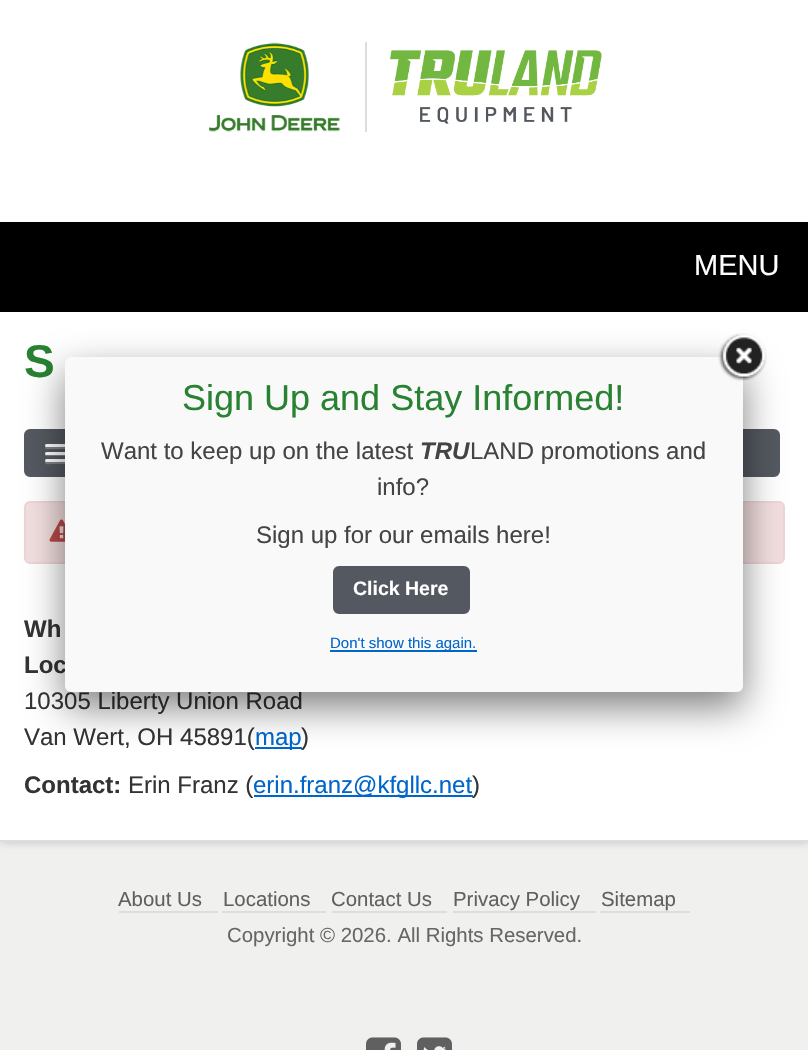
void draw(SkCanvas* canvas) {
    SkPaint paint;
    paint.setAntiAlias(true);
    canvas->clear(0xFFF0F0EF);
    paint.setColor(0x33000000);
    paint.setMaskFilter(SkMaskFilter::MakeBlur(kNormal_SkBlurStyle, 4));
    canvas->drawRect(SkRect::MakeXYWH(0, 0, 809, 842), paint);
    paint.setMaskFilter(nullptr);
    paint.setColor(0xFFFFFFFF);
    canvas->drawRect(SkRect::MakeXYWH(0, 0, 808, 222), paint);
    canvas->drawImageRect(SkImages::DeferredFromEncodedData(SkData::MakeFromFileName("img1.png")), SkRect::MakeXYWH(209, 42, 131, 90), SkSamplingOptions());
    paint.setColor(0xFFDDDDDD);
    canvas->drawRect(SkRect::MakeXYWH(365, 42, 2, 90), paint);
    canvas->drawImageRect(SkImages::DeferredFromEncodedData(SkData::MakeFromFileName("img2.png")), SkRect::MakeXYWH(390, 50, 212, 74), SkSamplingOptions());
    paint.setColor(0xFF000000);
    canvas->drawRect(SkRect::MakeXYWH(0, 222, 808, 90), paint);
    SkFont font1(fontMgr->matchFamilyStyle("Liberation Sans", SkFontStyle::Normal()), 29);
    font1.setSubpixel(true);
    paint.setColor(0xFFFFFFFF);
    canvas->drawString("MENU", 694, 275, font1, paint);
    canvas->drawRect(SkRect::MakeXYWH(0, 312, 808, 528), paint);
    paint.setColor(0xFFDDDDDD);
    canvas->drawRect(SkRect::MakeXYWH(0, 840, 808, 2), paint);
    SkFont font2(fontMgr->matchFamilyStyle("Liberation Sans", SkFontStyle::Bold()), 46);
    font2.setSubpixel(true);
    paint.setColor(0xFF288232);
    canvas->drawString("S", 24, 377, font2, paint);
    paint.setColor(0xFF545860);
    canvas->drawRoundRect(SkRect::MakeXYWH(25, 430, 754, 46), 5, 5, paint);
    paint.setStyle(SkPaint::kStroke_Style);
    paint.setStrokeWidth(2);
    canvas->drawRoundRect(SkRect::MakeXYWH(25, 430, 754, 46), 5, 5, paint);
    paint.setStyle(SkPaint::kFill_Style);
    paint.setColor(0xFF7F8288);
    canvas->drawPath(SkPathBuilder().moveTo(45.5f, 446.5f).lineTo(45, 448).cubicTo(45.5f, 450, 50, 449, 50.5f, 449).lineTo(66.5f, 449).cubicTo(67, 449, 71.5f, 450, 72, 448).lineTo(71.5f, 446.5f).lineTo(70.5f, 447).lineTo(46.5f, 447).close().detach(), paint);
    paint.setColor(0xFFFFFFFF);
    canvas->drawRoundRect(SkRect::MakeXYWH(45, 444, 27, 3), 1.5f, 1.5f, paint);
    paint.setColor(0xFF7F8288);
    canvas->drawPath(SkPathBuilder().moveTo(45, 454).cubicTo(43.5f, 457, 50.5f, 456, 50.5f, 456).lineTo(66.5f, 456).cubicTo(66.5f, 456, 73.5f, 457, 72, 454).cubicTo(71.5f, 454, 71, 454.5f, 70.5f, 454.5f).lineTo(46.5f, 454.5f).cubicTo(46, 454.5f, 45.5f, 454, 45, 454).close().detach(), paint);
    paint.setColor(0xFFFFFFFF);
    canvas->drawRoundRect(SkRect::MakeXYWH(45, 452, 27, 3), 1.5f, 1.5f, paint);
    paint.setColor(0xFF7F8288);
    canvas->drawPath(SkPathBuilder().moveTo(45.5f, 461.5f).lineTo(45, 463).cubicTo(45.5f, 465, 50, 464, 50.5f, 464).lineTo(66.5f, 464).cubicTo(67, 464, 71.5f, 465, 72, 463).lineTo(71.5f, 461.5f).lineTo(70.5f, 462).lineTo(46.5f, 462).close().detach(), paint);
    paint.setColor(0xFFFFFFFF);
    canvas->drawRoundRect(SkRect::MakeXYWH(45, 459, 27, 3), 1.5f, 1.5f, paint);
    paint.setColor(0xFFF2DEDE);
    canvas->drawRoundRect(SkRect::MakeXYWH(25, 502, 759, 61), 5, 5, paint);
    paint.setStyle(SkPaint::kStroke_Style);
    paint.setColor(0xFFEED3D7);
    canvas->drawRoundRect(SkRect::MakeXYWH(25, 502, 759, 61), 5, 5, paint);
    canvas->drawImageRect(SkImages::DeferredFromEncodedData(SkData::MakeFromFileName("img3.png")), SkRect::MakeXYWH(49, 519, 16, 23), SkSamplingOptions());
    SkFont font3(fontMgr->matchFamilyStyle("Liberation Sans", SkFontStyle::Bold()), 24);
    font3.setSubpixel(true);
    paint.setStyle(SkPaint::kFill_Style);
    paint.setColor(0xFF333333);
    canvas->drawString("Wh", 24, 637, font3, paint);
    canvas->drawString("Loc", 24, 673, font3, paint);
    SkFont font4(fontMgr->matchFamilyStyle("Liberation Sans", SkFontStyle::Normal()), 24);
    font4.setSubpixel(true);
    canvas->drawString("10305 Liberty Union Road", 24, 709, font4, paint);
    canvas->drawString("Van Wert, OH 45891(", 24, 745, font4, paint);
    paint.setColor(0xFF0066CC);
    canvas->drawRect(SkRect::MakeXYWH(255, 747, 47, 2), paint);
    canvas->drawString("map", 255, 745, font4, paint);
    paint.setColor(0xFF333333);
    canvas->drawString(")", 301, 745, font4, paint);
    canvas->drawString("Contact:", 24, 793, font3, paint);
    canvas->drawString("Erin Franz (", 128, 793, font4, paint);
    paint.setColor(0xFF0066CC);
    canvas->drawRect(SkRect::MakeXYWH(254, 795, 219, 2), paint);
    canvas->drawString("erin.franz@kfgllc.net", 253, 793, font4, paint);
    paint.setColor(0xFF333333);
    canvas->drawString(")", 472, 793, font4, paint);
    paint.setColor(0x80000000);
    paint.setMaskFilter(SkMaskFilter::MakeBlur(kNormal_SkBlurStyle, 19));
    canvas->drawRoundRect(SkRect::MakeXYWH(65, 372, 678, 335), 6, 6, paint);
    paint.setMaskFilter(nullptr);
    paint.setColor(0xFFF9F9F9);
    canvas->drawRoundRect(SkRect::MakeXYWH(65, 357, 678, 335), 6, 6, paint);
    canvas->drawImageRect(SkImages::DeferredFromEncodedData(SkData::MakeFromFileName("img4.png")), SkRect::MakeXYWH(718, 333, 49, 48), SkSamplingOptions());
    SkFont font5(fontMgr->matchFamilyStyle("Liberation Sans", SkFontStyle::Normal()), 36);
    font5.setSubpixel(true);
    paint.setColor(0xFF288232);
    canvas->drawString("Sign Up and Stay Informed!", 182, 410, font5, paint);
    paint.setColor(0xFF444444);
    canvas->drawString("Want to keep up on the latest", 101, 459, font4, paint);
    SkFont font6(fontMgr->matchFamilyStyle("Liberation Sans", SkFontStyle::BoldItalic()), 24);
    font6.setSubpixel(true);
    canvas->drawString("TRU", 420, 459, font6, paint);
    canvas->drawString("LAND promotions and", 470, 459, font4, paint);
    canvas->drawString("info?", 377, 495, font4, paint);
    canvas->drawString("Sign up for our emails here!", 256, 543, font4, paint);
    paint.setColor(0xFF545860);
    canvas->drawRoundRect(SkRect::MakeXYWH(334, 567, 135, 46), 5, 5, paint);
    paint.setStyle(SkPaint::kStroke_Style);
    canvas->drawRoundRect(SkRect::MakeXYWH(334, 567, 135, 46), 5, 5, paint);
    SkFont font7(fontMgr->matchFamilyStyle("Liberation Sans", SkFontStyle::Bold()), 19.5f);
    font7.setSubpixel(true);
    paint.setStyle(SkPaint::kFill_Style);
    paint.setColor(0xFFFFFFFF);
    canvas->drawString("Click Here", 353, 595, font7, paint);
    paint.setColor(0xFF0066CC);
    canvas->drawRect(SkRect::MakeXYWH(330, 650, 147, 2), paint);
    SkFont font8(fontMgr->matchFamilyStyle("Liberation Sans", SkFontStyle::Normal()), 15);
    font8.setSubpixel(true);
    canvas->drawString("Don't show this again.", 330, 648, font8, paint);
    SkFont font9(fontMgr->matchFamilyStyle("Liberation Sans", SkFontStyle::Normal()), 20.4f);
    font9.setSubpixel(true);
    paint.setColor(0xFF606060);
    canvas->drawString("About Us", 118, 906, font9, paint);
    paint.setColor(0xFFDDDDDD);
    canvas->drawRect(SkRect::MakeXYWH(119, 911, 99, 2), paint);
    paint.setColor(0xFF606060);
    canvas->drawString("Locations", 223, 906, font9, paint);
    paint.setColor(0xFFDDDDDD);
    canvas->drawRect(SkRect::MakeXYWH(222, 911, 104, 2), paint);
    paint.setColor(0xFF606060);
    canvas->drawString("Contact Us", 331, 906, font9, paint);
    paint.setColor(0xFFDDDDDD);
    canvas->drawRect(SkRect::MakeXYWH(332, 911, 115, 2), paint);
    paint.setColor(0xFF606060);
    canvas->drawString("Privacy Policy", 453, 906, font9, paint);
    paint.setColor(0xFFDDDDDD);
    canvas->drawRect(SkRect::MakeXYWH(453, 911, 143, 2), paint);
    paint.setColor(0xFF606060);
    canvas->drawString("Sitemap", 601, 906, font9, paint);
    paint.setColor(0xFFDDDDDD);
    canvas->drawRect(SkRect::MakeXYWH(600, 911, 90, 2), paint);
    paint.setColor(0xFF666666);
    canvas->drawString("Copyright © 2026. All Rights Reserved.", 227, 942, font9, paint);
    canvas->drawImageRect(SkImages::DeferredFromEncodedData(SkData::MakeFromFileName("img5.png")), SkRect::MakeXYWH(366, 1037, 35, 13), SkSamplingOptions());
    canvas->drawImageRect(SkImages::DeferredFromEncodedData(SkData::MakeFromFileName("img6.png")), SkRect::MakeXYWH(417, 1037, 35, 13), SkSamplingOptions());
}
